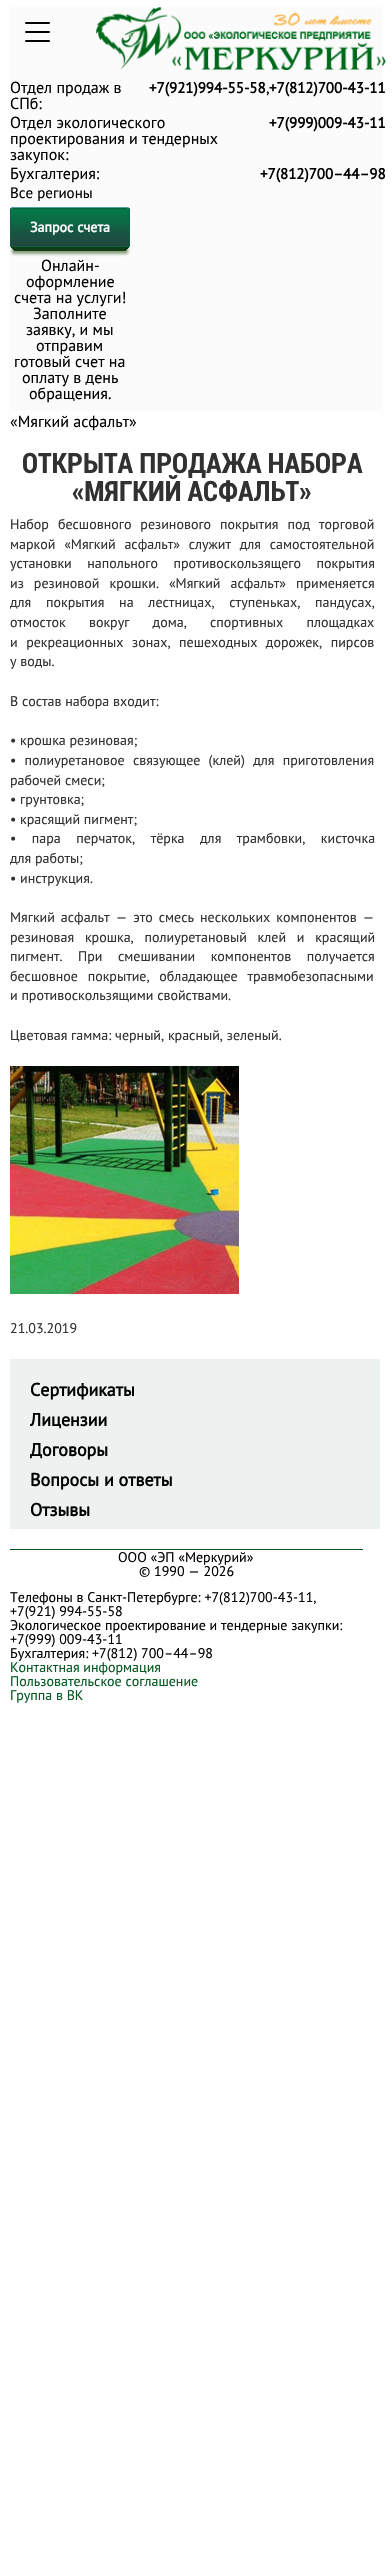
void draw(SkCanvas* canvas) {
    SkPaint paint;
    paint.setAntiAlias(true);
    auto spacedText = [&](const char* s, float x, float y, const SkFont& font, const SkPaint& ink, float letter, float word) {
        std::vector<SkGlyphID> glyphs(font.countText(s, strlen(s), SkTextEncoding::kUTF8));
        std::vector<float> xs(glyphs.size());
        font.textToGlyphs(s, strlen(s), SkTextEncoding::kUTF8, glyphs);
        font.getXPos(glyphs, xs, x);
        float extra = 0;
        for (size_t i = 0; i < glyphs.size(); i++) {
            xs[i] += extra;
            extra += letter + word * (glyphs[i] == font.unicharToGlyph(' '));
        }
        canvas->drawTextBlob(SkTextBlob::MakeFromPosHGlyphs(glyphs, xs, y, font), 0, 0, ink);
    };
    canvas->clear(0xFFFFFFFF);
    paint.setColor(0xFFFBFBFB);
    canvas->drawRect(SkRect::MakeXYWH(10, 7, 372, 404), paint);
    paint.setColor(0xFF000000);
    canvas->drawRoundRect(SkRect::MakeXYWH(25, 22, 25, 2), 1, 1, paint);
    canvas->drawRoundRect(SkRect::MakeXYWH(25, 31, 25, 2), 1, 1, paint);
    canvas->drawRoundRect(SkRect::MakeXYWH(25, 40, 25, 2), 1, 1, paint);
    canvas->drawImageRect(SkImages::DeferredFromEncodedData(SkData::MakeFromFileName("img1.png")), SkRect::MakeXYWH(96, 7, 290, 63), SkSamplingOptions());
    SkFont font1(fontMgr->matchFamilyStyle("PT Sans", SkFontStyle::Normal()), 16);
    font1.setSubpixel(true);
    canvas->drawString("Отдел продаж в", 10, 93, font1, paint);
    canvas->drawString("СПб:", 10, 109, font1, paint);
    SkFont font2(fontMgr->matchFamilyStyle("PT Sans", SkFontStyle::Bold()), 15);
    font2.setSubpixel(true);
    canvas->drawString("+7(921)994-55-58", 149, 93, font2, paint);
    canvas->drawString(",", 266, 93, font1, paint);
    canvas->drawString("+7(812)700-43-11", 269, 93, font2, paint);
    canvas->drawString("Отдел экологического", 10, 128, font1, paint);
    canvas->drawString("проектирования и тендерных", 10, 144, font1, paint);
    canvas->drawString("закупок:", 10, 160, font1, paint);
    canvas->drawString("+7(999)009-43-11", 269, 128, font2, paint);
    canvas->drawString("Бухгалтерия:", 10, 179, font1, paint);
    canvas->drawString("+7(812)700–44–98", 260, 179, font2, paint);
    SkFont font3(fontMgr->matchFamilyStyle("PT Sans", SkFontStyle::Normal()), 15);
    font3.setSubpixel(true);
    canvas->drawString("Все регионы", 10, 198, font3, paint);
    paint.setColor(0xFF03372A);
    canvas->drawRect(SkRect::MakeXYWH(14, 250, 112, 1), paint);
    canvas->drawRect(SkRect::MakeXYWH(13, 249, 114, 1), paint);
    canvas->drawRect(SkRect::MakeXYWH(12, 248, 116, 1), paint);
    canvas->drawRect(SkRect::MakeXYWH(11, 247, 118, 1), paint);
    paint.setColor(0x80194200);
    paint.setMaskFilter(SkMaskFilter::MakeBlur(kNormal_SkBlurStyle, 1.5f));
    canvas->drawRoundRect(SkRect::MakeXYWH(12, 218, 116, 36), 1, 1, paint);
    paint.setMaskFilter(nullptr);
    canvas->save();
    canvas->clipPath(SkPathBuilder().moveTo(13, 207).lineTo(127, 207).cubicTo(128.5f, 207, 130, 208.5f, 130, 210).lineTo(130, 247).lineTo(10, 247).lineTo(10, 210).cubicTo(10, 208.5f, 11.5f, 207, 13, 207).close().detach(), true);
    {
        const SkColor colors[] = {0xFF025934, 0xFF037B47, 0xFF0C6A45, 0xFF195442, 0xFF1F4941, 0xFF244040};
        const float stops[] = {0, 0.05f, 0.37f, 0.65f, 0.98f, 1};
        const SkPoint ends[] = {{70, 170}, {70, 208}};
        paint.setShader(SkGradientShader::MakeLinear(ends, colors, stops, 6, SkTileMode::kClamp));
        paint.setAlpha(255);
    }
    canvas->drawRect(SkRect::MakeXYWH(10, 207, 120, 1), paint);
    {
        const SkColor colors[] = {0xFF025934, 0xFF037B47, 0xFF0C6A45, 0xFF195442, 0xFF1F4941, 0xFF244040};
        const float stops[] = {0, 0.05f, 0.37f, 0.65f, 0.98f, 1};
        const SkPoint ends[] = {{70, 208}, {70, 246}};
        paint.setShader(SkGradientShader::MakeLinear(ends, colors, stops, 6, SkTileMode::kClamp));
        paint.setAlpha(255);
    }
    canvas->drawRect(SkRect::MakeXYWH(10, 208, 120, 38), paint);
    canvas->restore();
    paint.setShader(nullptr);
    paint.setColor(0xFF52A3A3);
    canvas->drawPath(SkPathBuilder().moveTo(13, 207).lineTo(11, 208).lineTo(12, 209).lineTo(13, 208).lineTo(127, 208).lineTo(128, 209).lineTo(129, 208).lineTo(127, 207).close().detach(), paint);
    paint.setColor(0xFF135F44);
    canvas->drawPath(SkPathBuilder().moveTo(130, 247).lineTo(130, 210).cubicTo(130, 209, 130, 208, 129, 208).lineTo(128.5f, 208.5f).lineTo(129, 210).lineTo(129, 246).close().detach(), paint);
    canvas->drawPath(SkPathBuilder().moveTo(130, 247).lineTo(129, 246).lineTo(11, 246).lineTo(10, 247).close().detach(), paint);
    canvas->drawPath(SkPathBuilder().moveTo(10, 247).lineTo(11, 246).lineTo(11, 210).lineTo(11.5f, 208.5f).lineTo(11, 208).cubicTo(10, 208, 10, 209, 10, 210).close().detach(), paint);
    SkFont font4(fontMgr->matchFamilyStyle("PT Sans", SkFontStyle::Bold()), 14);
    font4.setSubpixel(true);
    paint.setColor(0xFFFFFFFF);
    canvas->drawString("Запрос счета", 30, 232, font4, paint);
    paint.setColor(0xFF000000);
    canvas->drawString("Онлайн-", 41, 271, font1, paint);
    canvas->drawString("оформление", 26, 287, font1, paint);
    canvas->drawString("счета на услуги!", 14, 303, font1, paint);
    canvas->drawString("Заполните", 33, 319, font1, paint);
    canvas->drawString("заявку, и мы", 26, 335, font1, paint);
    canvas->drawString("отправим", 36, 351, font1, paint);
    canvas->drawString("готовый счет на", 14, 367, font1, paint);
    canvas->drawString("оплату в день", 22, 383, font1, paint);
    canvas->drawString("обращения.", 29, 399, font1, paint);
    canvas->drawString("«Мягкий асфальт»", 10, 427, font1, paint);
    SkFont font5(fontMgr->matchFamilyStyle("Roboto Condensed", SkFontStyle::Bold()), 28);
    font5.setSubpixel(true);
    paint.setColor(0xFF313131);
    canvas->drawString("ОТКРЫТА ПРОДАЖА НАБОРА", 22, 473, font5, paint);
    canvas->drawString("«МЯГКИЙ АСФАЛЬТ»", 72, 501, font5, paint);
    SkFont font6(fontMgr->matchFamilyStyle("PT Sans", SkFontStyle::Normal()), 14);
    font6.setSubpixel(true);
    spacedText("Набор бесшовного резинового покрытия под торговой", 10, 529, font6, paint, 0, 5.25f);
    spacedText("маркой «Мягкий асфальт» служит для самостоятельной", 10, 549, font6, paint, 0, 5);
    spacedText("установки напольного противоскользящего покрытия", 10, 568, font6, paint, 0, 11.75f);
    spacedText("из резиновой крошки. «Мягкий асфальт» применяется", 10, 588, font6, paint, 0, 6.25f);
    spacedText("для покрытия на лестницах, ступеньках, пандусах,", 10, 607, font6, paint, 0, 11);
    spacedText("отмосток вокруг дома, спортивных площадках", 10, 627, font6, paint, 0, 19.5f);
    spacedText("и рекреационных зонах, пешеходных дорожек, пирсов", 10, 647, font6, paint, 0, 4.75f);
    canvas->drawString("у воды.", 10, 666, font6, paint);
    canvas->drawString("В состав набора входит:", 10, 706, font6, paint);
    canvas->drawString("• крошка резиновая;", 10, 745, font6, paint);
    spacedText("• полиуретановое связующее (клей) для приготовления", 10, 765, font6, paint, 0, 4.5f);
    canvas->drawString("рабочей смеси;", 10, 785, font6, paint);
    canvas->drawString("• грунтовка;", 10, 804, font6, paint);
    canvas->drawString("• красящий пигмент;", 10, 824, font6, paint);
    spacedText("• пара перчаток, тёрка для трамбовки, кисточка", 10, 843, font6, paint, 0, 11.75f);
    canvas->drawString("для работы;", 10, 863, font6, paint);
    canvas->drawString("• инструкция.", 10, 883, font6, paint);
    spacedText("Мягкий асфальт — это смесь нескольких компонентов —", 10, 922, font6, paint, 0, 2.25f);
    spacedText("резиновая крошка, полиуретановый клей и красящий", 10, 942, font6, paint, 0, 7);
    spacedText("пигмент. При смешивании компонентов получается", 10, 961, font6, paint, 0, 11.75f);
    spacedText("бесшовное покрытие, обладающее травмобезопасными", 10, 981, font6, paint, 0, 6);
    canvas->drawString("и противоскользящими свойствами.", 10, 1000, font6, paint);
    canvas->drawString("Цветовая гамма: черный, красный, зеленый.", 10, 1040, font6, paint);
    canvas->drawImageRect(SkImages::DeferredFromEncodedData(SkData::MakeFromFileName("img2.png")), SkRect::MakeXYWH(10, 1066, 229, 228), SkSamplingOptions());
    canvas->drawString("21.03.2019", 10, 1333, font6, paint);
    paint.setColor(0xFFEDF1EF);
    canvas->drawRect(SkRect::MakeXYWH(10, 1359, 370, 170), paint);
    SkFont font7(fontMgr->matchFamilyStyle("PT Sans", SkFontStyle::Bold()), 18);
    font7.setSubpixel(true);
    paint.setColor(0xFF000000);
    canvas->drawString("Сертификаты", 30, 1396, font7, paint);
    canvas->drawString("Лицензии", 30, 1426, font7, paint);
    canvas->drawString("Договоры", 30, 1456, font7, paint);
    canvas->drawString("Вопросы и ответы", 30, 1486, font7, paint);
    canvas->drawString("Отзывы", 30, 1516, font7, paint);
    paint.setColor(0xFF01581C);
    canvas->drawRect(SkRect::MakeXYWH(10, 1549, 353, 1), paint);
    paint.setColor(0xFF000000);
    canvas->drawString("ООО «ЭП «Меркурий»", 118, 1562, font6, paint);
    canvas->drawString("© 1990 — 2026", 139, 1576, font6, paint);
    canvas->drawString("Телефоны в Санкт-Петербурге: +7(812)700-43-11,", 10, 1602, font6, paint);
    canvas->drawString("+7(921) 994-55-58", 10, 1616, font6, paint);
    canvas->drawString("Экологическое проектирование и тендерные закупки:", 10, 1630, font6, paint);
    canvas->drawString("+7(999) 009-43-11", 10, 1644, font6, paint);
    canvas->drawString("Бухгалтерия: +7(812) 700–44–98", 10, 1658, font6, paint);
    paint.setColor(0xFF055923);
    canvas->drawString("Контактная информация", 10, 1672, font6, paint);
    canvas->drawString("Пользовательское соглашение", 10, 1686, font6, paint);
    canvas->drawString("Группа в ВК", 10, 1700, font6, paint);
}
